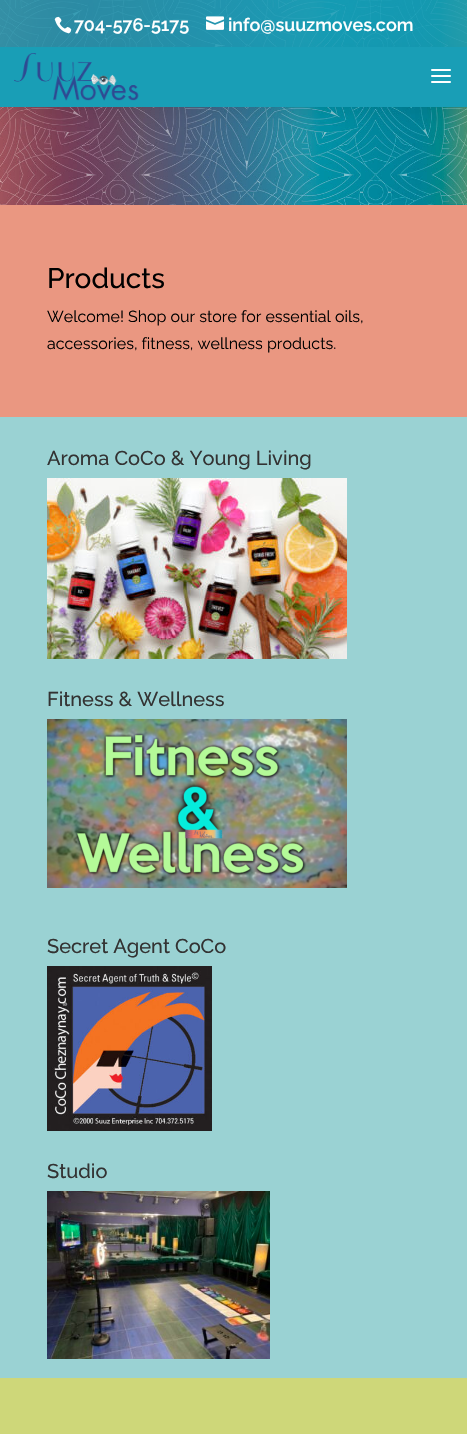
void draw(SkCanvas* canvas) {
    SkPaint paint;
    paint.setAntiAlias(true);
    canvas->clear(0xFFFFFFFF);
    canvas->drawImageRect(SkImages::DeferredFromEncodedData(SkData::MakeFromFileName("img5.png")), SkRect::MakeXYWH(0, 0, 467, 205), SkSamplingOptions());
    paint.setColor(0x1A000000);
    paint.setMaskFilter(SkMaskFilter::MakeBlur(kNormal_SkBlurStyle, 12.5f));
    canvas->drawRect(SkRect::MakeXYWH(0, 49, 467, 60), paint);
    paint.setMaskFilter(nullptr);
    paint.setColor(0xFF199EB6);
    canvas->drawRect(SkRect::MakeXYWH(0, 47, 467, 60), paint);
    canvas->drawImageRect(SkImages::DeferredFromEncodedData(SkData::MakeFromFileName("img1.png")), SkRect::MakeXYWH(14, 53, 125, 48), SkSamplingOptions());
    canvas->drawImageRect(SkImages::DeferredFromEncodedData(SkData::MakeFromFileName("img2.png")), SkRect::MakeXYWH(431, 69, 20, 14), SkSamplingOptions());
    paint.setColor(0xCC199EB6);
    canvas->drawRect(SkRect::MakeXYWH(0, 0, 467, 47), paint);
    canvas->drawImageRect(SkImages::DeferredFromEncodedData(SkData::MakeFromFileName("img3.png")), SkRect::MakeXYWH(54, 16, 18, 18), SkSamplingOptions());
    SkFont font1(fontMgr->matchFamilyStyle("Raleway", SkFontStyle(600, SkFontStyle::kNormal_Width, SkFontStyle::kUpright_Slant)), 18);
    font1.setSubpixel(true);
    paint.setColor(0xFFFFFFFF);
    canvas->drawString("704-576-5175", 74, 31, font1, paint);
    canvas->drawImageRect(SkImages::DeferredFromEncodedData(SkData::MakeFromFileName("img4.png")), SkRect::MakeXYWH(206, 16, 18, 14), SkSamplingOptions());
    canvas->drawString("info@suuzmoves.com", 228, 31, font1, paint);
    paint.setColor(0xFFEA9781);
    canvas->drawRect(SkRect::MakeXYWH(0, 205, 467, 212), paint);
    SkFont font2(fontMgr->matchFamilyStyle("Raleway", SkFontStyle(500, SkFontStyle::kNormal_Width, SkFontStyle::kUpright_Slant)), 28);
    font2.setSubpixel(true);
    paint.setColor(0xFF000000);
    canvas->drawString("Products", 47, 288, font2, paint);
    SkFont font3(fontMgr->matchFamilyStyle("Raleway", SkFontStyle::Normal()), 16);
    font3.setSubpixel(true);
    canvas->drawString("Welcome! Shop our store for essential oils,", 47, 322, font3, paint);
    canvas->drawString("accessories, fitness, wellness products.", 47, 349, font3, paint);
    paint.setColor(0xFF9AD2D3);
    canvas->drawRect(SkRect::MakeXYWH(0, 417, 467, 961), paint);
    SkFont font4(fontMgr->matchFamilyStyle("Raleway", SkFontStyle(500, SkFontStyle::kNormal_Width, SkFontStyle::kUpright_Slant)), 20);
    font4.setSubpixel(true);
    paint.setColor(0xFF333333);
    canvas->drawString("Aroma CoCo & Young Living", 47, 465, font4, paint);
    canvas->drawImageRect(SkImages::DeferredFromEncodedData(SkData::MakeFromFileName("img6.png")), SkRect::MakeXYWH(47, 478, 300, 181), SkSamplingOptions());
    canvas->drawString("Fitness & Wellness", 47, 706, font4, paint);
    canvas->drawImageRect(SkImages::DeferredFromEncodedData(SkData::MakeFromFileName("img7.png")), SkRect::MakeXYWH(47, 719, 300, 169), SkSamplingOptions());
    canvas->drawString("Secret Agent CoCo", 47, 953, font4, paint);
    canvas->drawImageRect(SkImages::DeferredFromEncodedData(SkData::MakeFromFileName("img8.png")), SkRect::MakeXYWH(47, 966, 165, 165), SkSamplingOptions());
    canvas->drawString("Studio", 47, 1178, font4, paint);
    canvas->drawImageRect(SkImages::DeferredFromEncodedData(SkData::MakeFromFileName("img9.png")), SkRect::MakeXYWH(47, 1191, 223, 168), SkSamplingOptions());
    paint.setColor(0xFFCED779);
    canvas->drawRect(SkRect::MakeXYWH(0, 1378, 467, 56), paint);
}
